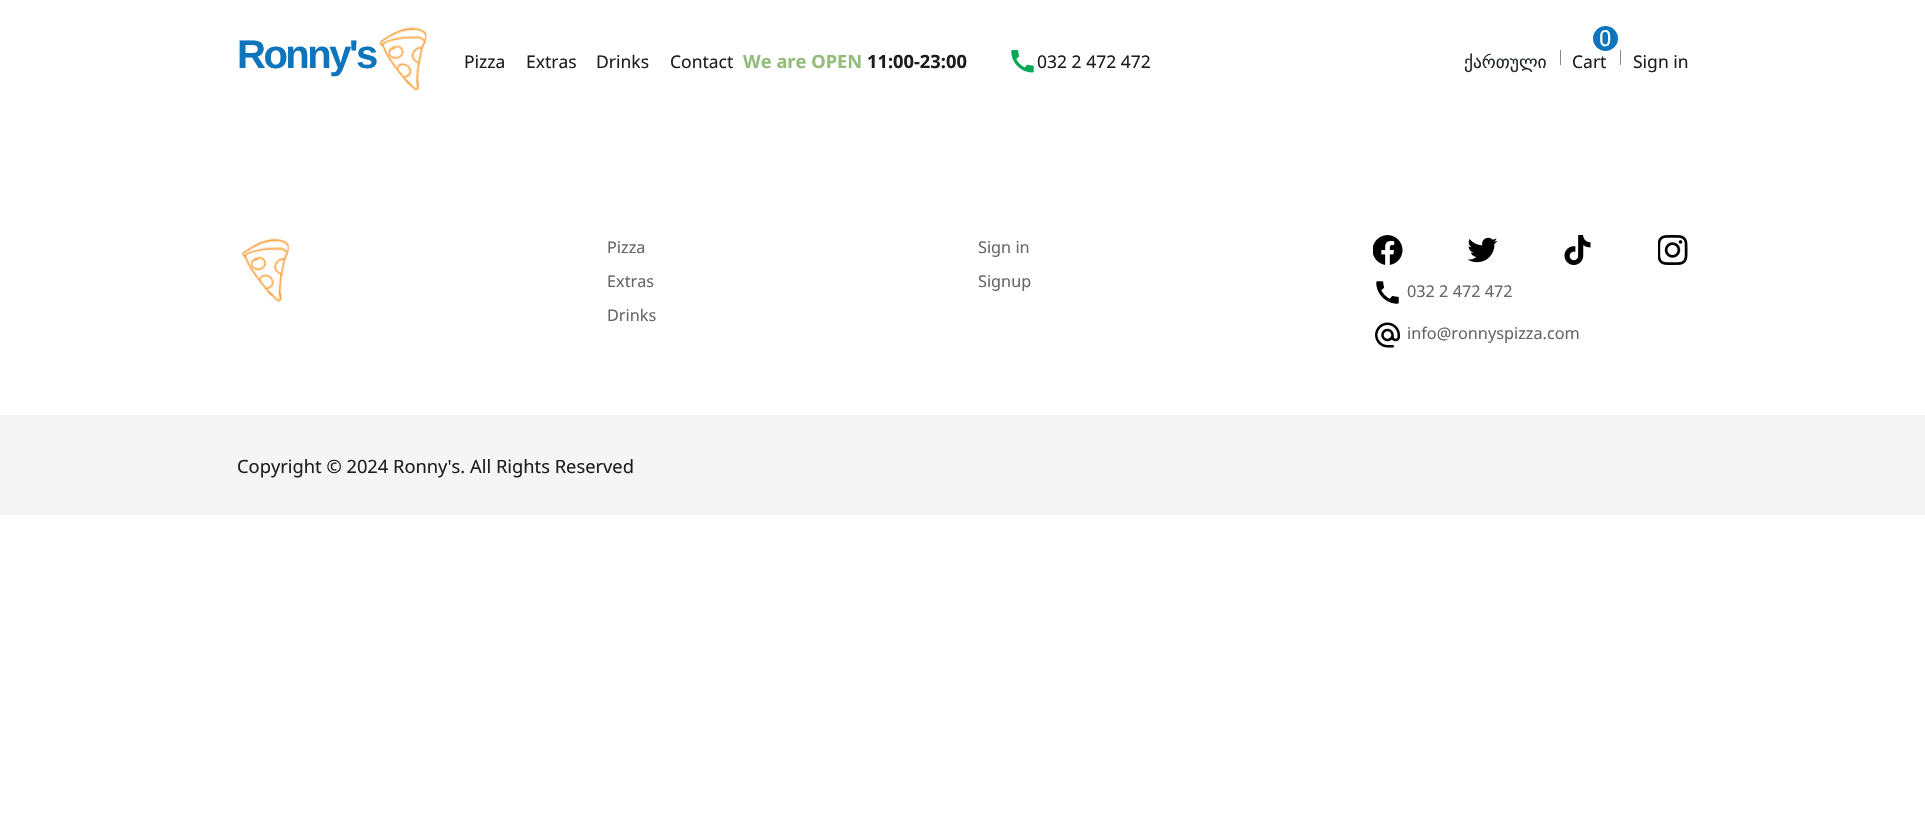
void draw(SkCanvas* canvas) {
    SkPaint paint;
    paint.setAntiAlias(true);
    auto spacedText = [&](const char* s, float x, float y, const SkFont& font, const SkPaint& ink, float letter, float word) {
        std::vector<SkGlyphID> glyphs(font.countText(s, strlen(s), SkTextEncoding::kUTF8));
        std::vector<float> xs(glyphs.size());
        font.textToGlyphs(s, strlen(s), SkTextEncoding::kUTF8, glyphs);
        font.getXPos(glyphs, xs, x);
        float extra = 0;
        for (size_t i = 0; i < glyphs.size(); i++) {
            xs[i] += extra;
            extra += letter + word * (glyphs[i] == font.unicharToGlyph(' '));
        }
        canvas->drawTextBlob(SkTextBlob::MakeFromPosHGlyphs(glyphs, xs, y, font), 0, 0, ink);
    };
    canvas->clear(0xFFFFFFFF);
    SkFont font1(fontMgr->matchFamilyStyle("Liberation Sans", SkFontStyle::Bold()), 40);
    font1.setSubpixel(true);
    paint.setColor(0xFF0E75BC);
    spacedText("Ronny's", 237, 68, font1, paint, -2.5f, 0);
    canvas->drawImageRect(SkImages::DeferredFromEncodedData(SkData::MakeFromFileName("img1.png")), SkRect::MakeXYWH(379, 27, 48, 64), SkSamplingOptions());
    SkFont font2(fontMgr->matchFamilyStyle("Noto Sans", SkFontStyle::Normal()), 17.5f);
    font2.setSubpixel(true);
    paint.setColor(0xFF1D1D1D);
    canvas->drawString("Pizza", 464, 68, font2, paint);
    canvas->drawString("Extras", 526, 68, font2, paint);
    canvas->drawString("Drinks", 596, 68, font2, paint);
    canvas->drawString("Contact", 670, 68, font2, paint);
    SkFont font3(fontMgr->matchFamilyStyle("Noto Sans", SkFontStyle::Bold()), 18.3f);
    font3.setSubpixel(true);
    paint.setColor(0xFF93BD7D);
    canvas->drawString("We are OPEN", 743, 68, font3, paint);
    paint.setColor(0xFF1D1D1D);
    canvas->drawString("11:00-23:00", 867, 68, font3, paint);
    canvas->drawImageRect(SkImages::DeferredFromEncodedData(SkData::MakeFromFileName("img2.png")), SkRect::MakeXYWH(1011, 50, 23, 23), SkSamplingOptions());
    canvas->drawString("032 2 472 472", 1037, 68, font2, paint);
    SkFont font4(fontMgr->matchFamilyStyle("DejaVu Sans", SkFontStyle::Normal()), 17.5f);
    font4.setSubpixel(true);
    paint.setColor(0xFF212529);
    canvas->drawString("ქართული", 1464, 68, font4, paint);
    paint.setColor(0xFF888888);
    canvas->drawRect(SkRect::MakeXYWH(1560, 50, 1, 15), paint);
    paint.setColor(0xFF0E75BC);
    canvas->drawCircle(1605.5f, 38.5f, 12.5f, paint);
    SkFont font5(fontMgr->matchFamilyStyle("Roboto", SkFontStyle::Normal()), 22);
    font5.setSubpixel(true);
    paint.setColor(0xFFFFFFFF);
    canvas->drawString("0", 1599, 46, font5, paint);
    paint.setColor(0xFF1D1D1D);
    canvas->drawString("Cart", 1572, 68, font2, paint);
    paint.setColor(0xFF888888);
    canvas->drawRect(SkRect::MakeXYWH(1620, 50, 1, 15), paint);
    paint.setColor(0xFF1D1D1D);
    canvas->drawString("Sign in", 1633, 68, font2, paint);
    canvas->drawImageRect(SkImages::DeferredFromEncodedData(SkData::MakeFromFileName("img3.png")), SkRect::MakeXYWH(242, 238, 47, 64), SkSamplingOptions());
    SkFont font6(fontMgr->matchFamilyStyle("Noto Sans", SkFontStyle::Normal()), 16.25f);
    font6.setSubpixel(true);
    paint.setColor(0xFF666666);
    canvas->drawString("Pizza", 607, 253, font6, paint);
    canvas->drawString("Extras", 607, 287, font6, paint);
    canvas->drawString("Drinks", 607, 321, font6, paint);
    canvas->drawString("Sign in", 978, 253, font6, paint);
    canvas->drawString("Signup", 978, 287, font6, paint);
    canvas->drawImageRect(SkImages::DeferredFromEncodedData(SkData::MakeFromFileName("img4.png")), SkRect::MakeXYWH(1373, 235, 30, 30), SkSamplingOptions());
    canvas->drawImageRect(SkImages::DeferredFromEncodedData(SkData::MakeFromFileName("img5.png")), SkRect::MakeXYWH(1468, 237, 30, 26), SkSamplingOptions());
    canvas->drawImageRect(SkImages::DeferredFromEncodedData(SkData::MakeFromFileName("img6.png")), SkRect::MakeXYWH(1564, 235, 27, 30), SkSamplingOptions());
    canvas->drawImageRect(SkImages::DeferredFromEncodedData(SkData::MakeFromFileName("img7.png")), SkRect::MakeXYWH(1658, 235, 30, 30), SkSamplingOptions());
    canvas->drawImageRect(SkImages::DeferredFromEncodedData(SkData::MakeFromFileName("img8.png")), SkRect::MakeXYWH(1376, 281, 23, 23), SkSamplingOptions());
    canvas->drawString("032 2 472 472", 1407, 297, font6, paint);
    canvas->drawImageRect(SkImages::DeferredFromEncodedData(SkData::MakeFromFileName("img9.png")), SkRect::MakeXYWH(1375, 322, 25, 26), SkSamplingOptions());
    canvas->drawString("info@ronnyspizza.com", 1407, 339, font6, paint);
    paint.setColor(0xFFF5F5F5);
    canvas->drawRect(SkRect::MakeXYWH(0, 415, 1925, 100), paint);
    SkFont font7(fontMgr->matchFamilyStyle("Noto Sans", SkFontStyle::Normal()), 18.3f);
    font7.setSubpixel(true);
    paint.setColor(0xFF1D1D1D);
    canvas->drawString("Copyright © 2024 Ronny's. All Rights Reserved", 237, 473, font7, paint);
}
